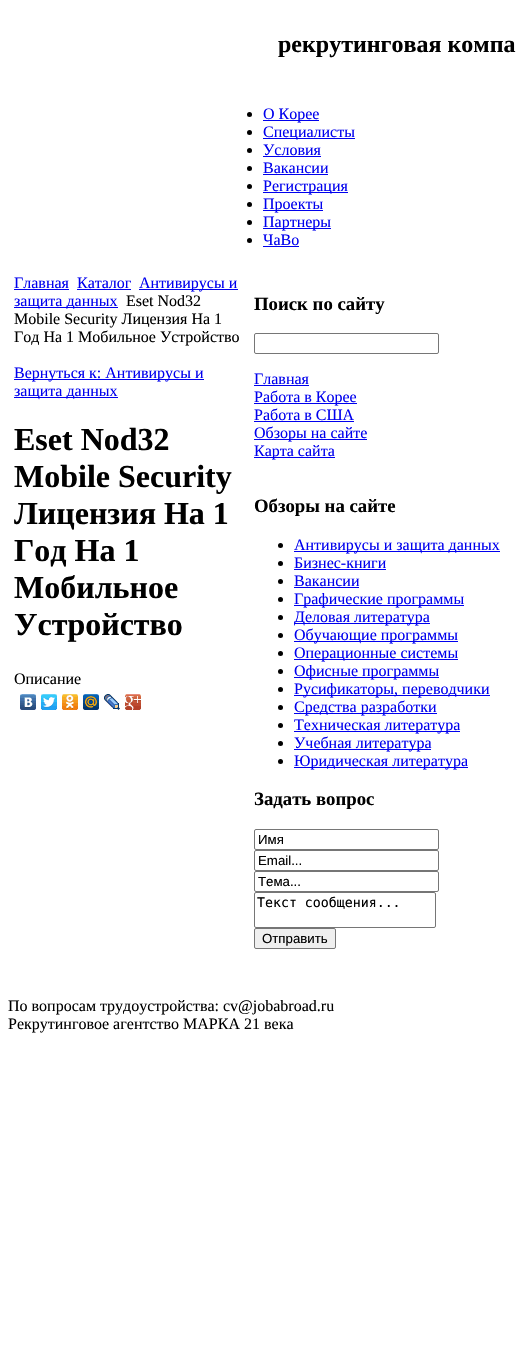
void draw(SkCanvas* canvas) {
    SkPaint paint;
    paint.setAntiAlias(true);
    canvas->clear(0xFFFFFFFF);
    SkFont font1(fontMgr->matchFamilyStyle("Liberation Serif", SkFontStyle::Bold()), 24);
    font1.setSubpixel(true);
    paint.setColor(0xFF000000);
    canvas->drawString("рекрутинговая компа", 278, 52, font1, paint);
    canvas->drawCircle(249.5f, 114.5f, 2.5f, paint);
    paint.setColor(0xFF0000EE);
    canvas->drawRect(SkRect::MakeXYWH(263, 120, 56, 1), paint);
    SkFont font2(fontMgr->matchFamilyStyle("Liberation Serif", SkFontStyle::Normal()), 16);
    font2.setSubpixel(true);
    canvas->drawString("О Корее", 263, 119, font2, paint);
    paint.setColor(0xFF000000);
    canvas->drawCircle(249.5f, 132.5f, 2.5f, paint);
    paint.setColor(0xFF0000EE);
    canvas->drawRect(SkRect::MakeXYWH(263, 138, 92, 1), paint);
    canvas->drawString("Специалисты", 263, 137, font2, paint);
    paint.setColor(0xFF000000);
    canvas->drawCircle(249.5f, 150.5f, 2.5f, paint);
    paint.setColor(0xFF0000EE);
    canvas->drawString("Условия", 263, 155, font2, paint);
    canvas->drawRect(SkRect::MakeXYWH(263, 156, 58, 1), paint);
    paint.setColor(0xFF000000);
    canvas->drawCircle(249.5f, 168.5f, 2.5f, paint);
    paint.setColor(0xFF0000EE);
    canvas->drawString("Вакансии", 263, 173, font2, paint);
    canvas->drawRect(SkRect::MakeXYWH(263, 174, 65, 1), paint);
    paint.setColor(0xFF000000);
    canvas->drawCircle(249.5f, 186.5f, 2.5f, paint);
    paint.setColor(0xFF0000EE);
    canvas->drawRect(SkRect::MakeXYWH(263, 192, 85, 1), paint);
    canvas->drawString("Регистрация", 263, 191, font2, paint);
    paint.setColor(0xFF000000);
    canvas->drawCircle(249.5f, 204.5f, 2.5f, paint);
    paint.setColor(0xFF0000EE);
    canvas->drawRect(SkRect::MakeXYWH(263, 210, 60, 1), paint);
    canvas->drawString("Проекты", 263, 209, font2, paint);
    paint.setColor(0xFF000000);
    canvas->drawCircle(249.5f, 222.5f, 2.5f, paint);
    paint.setColor(0xFF0000EE);
    canvas->drawRect(SkRect::MakeXYWH(263, 228, 68, 1), paint);
    canvas->drawString("Партнеры", 263, 227, font2, paint);
    paint.setColor(0xFF000000);
    canvas->drawCircle(249.5f, 240.5f, 2.5f, paint);
    paint.setColor(0xFF0000EE);
    canvas->drawString("ЧаВо", 263, 245, font2, paint);
    canvas->drawRect(SkRect::MakeXYWH(263, 246, 36, 1), paint);
    canvas->drawString("Главная", 14, 288, font2, paint);
    canvas->drawRect(SkRect::MakeXYWH(14, 289, 55, 1), paint);
    canvas->drawString("Каталог", 77, 288, font2, paint);
    canvas->drawRect(SkRect::MakeXYWH(77, 289, 54, 1), paint);
    canvas->drawRect(SkRect::MakeXYWH(139, 289, 99, 1), paint);
    canvas->drawString("Антивирусы и", 139, 288, font2, paint);
    canvas->drawRect(SkRect::MakeXYWH(14, 307, 104, 1), paint);
    canvas->drawString("защита данных", 14, 306, font2, paint);
    paint.setColor(0xFF000000);
    canvas->drawString("Eset Nod32", 126, 306, font2, paint);
    canvas->drawString("Mobile Security Лицензия На 1", 14, 324, font2, paint);
    canvas->drawString("Год На 1 Мобильное Устройство", 14, 342, font2, paint);
    paint.setColor(0xFF0000EE);
    canvas->drawRect(SkRect::MakeXYWH(14, 379, 190, 1), paint);
    canvas->drawString("Вернуться к: Антивирусы и", 14, 378, font2, paint);
    canvas->drawRect(SkRect::MakeXYWH(14, 397, 104, 1), paint);
    canvas->drawString("защита данных", 14, 396, font2, paint);
    SkFont font3(fontMgr->matchFamilyStyle("Liberation Serif", SkFontStyle::Bold()), 32);
    font3.setSubpixel(true);
    paint.setColor(0xFF000000);
    canvas->drawString("Eset Nod32", 14, 450, font3, paint);
    canvas->drawString("Mobile Security", 14, 487, font3, paint);
    canvas->drawString("Лицензия На 1", 14, 524, font3, paint);
    canvas->drawString("Год На 1", 14, 561, font3, paint);
    canvas->drawString("Мобильное", 14, 598, font3, paint);
    canvas->drawString("Устройство", 14, 635, font3, paint);
    canvas->drawString("Описание", 14, 684, font2, paint);
    canvas->drawImageRect(SkImages::DeferredFromEncodedData(SkData::MakeFromFileName("img1.png")), SkRect::MakeXYWH(20, 694, 16, 16), SkSamplingOptions());
    canvas->drawImageRect(SkImages::DeferredFromEncodedData(SkData::MakeFromFileName("img2.png")), SkRect::MakeXYWH(41, 694, 16, 16), SkSamplingOptions());
    canvas->drawImageRect(SkImages::DeferredFromEncodedData(SkData::MakeFromFileName("img3.png")), SkRect::MakeXYWH(62, 694, 16, 16), SkSamplingOptions());
    canvas->drawImageRect(SkImages::DeferredFromEncodedData(SkData::MakeFromFileName("img4.png")), SkRect::MakeXYWH(83, 694, 16, 16), SkSamplingOptions());
    canvas->drawImageRect(SkImages::DeferredFromEncodedData(SkData::MakeFromFileName("img5.png")), SkRect::MakeXYWH(104, 694, 16, 16), SkSamplingOptions());
    canvas->drawImageRect(SkImages::DeferredFromEncodedData(SkData::MakeFromFileName("img6.png")), SkRect::MakeXYWH(125, 694, 16, 16), SkSamplingOptions());
    SkFont font4(fontMgr->matchFamilyStyle("Liberation Serif", SkFontStyle::Bold()), 18.75f);
    font4.setSubpixel(true);
    canvas->drawString("Поиск по сайту", 254, 310, font4, paint);
    paint.setStyle(SkPaint::kStroke_Style);
    paint.setStrokeWidth(1);
    paint.setColor(0xFF767676);
    canvas->drawRoundRect(SkRect::MakeXYWH(254.5f, 333.5f, 184, 20), 1.5f, 1.5f, paint);
    paint.setStyle(SkPaint::kFill_Style);
    paint.setColor(0xFF0000EE);
    canvas->drawString("Главная", 254, 384, font2, paint);
    canvas->drawRect(SkRect::MakeXYWH(254, 385, 55, 1), paint);
    canvas->drawRect(SkRect::MakeXYWH(254, 403, 103, 1), paint);
    canvas->drawString("Работа в Корее", 254, 402, font2, paint);
    canvas->drawString("Работа в США", 254, 420, font2, paint);
    canvas->drawRect(SkRect::MakeXYWH(254, 421, 100, 1), paint);
    canvas->drawRect(SkRect::MakeXYWH(254, 439, 113, 1), paint);
    canvas->drawString("Обзоры на сайте", 254, 438, font2, paint);
    canvas->drawRect(SkRect::MakeXYWH(254, 457, 81, 1), paint);
    canvas->drawString("Карта сайта", 254, 456, font2, paint);
    paint.setColor(0xFF000000);
    canvas->drawString("Обзоры на сайте", 254, 512, font4, paint);
    canvas->drawCircle(280.5f, 545.5f, 2.5f, paint);
    paint.setColor(0xFF0000EE);
    canvas->drawRect(SkRect::MakeXYWH(294, 551, 206, 1), paint);
    canvas->drawString("Антивирусы и защита данных", 294, 550, font2, paint);
    paint.setColor(0xFF000000);
    canvas->drawCircle(280.5f, 563.5f, 2.5f, paint);
    paint.setColor(0xFF0000EE);
    canvas->drawString("Бизнес-книги", 294, 568, font2, paint);
    canvas->drawRect(SkRect::MakeXYWH(294, 569, 92, 1), paint);
    paint.setColor(0xFF000000);
    canvas->drawCircle(280.5f, 581.5f, 2.5f, paint);
    paint.setColor(0xFF0000EE);
    canvas->drawString("Вакансии", 294, 586, font2, paint);
    canvas->drawRect(SkRect::MakeXYWH(294, 587, 65, 1), paint);
    paint.setColor(0xFF000000);
    canvas->drawCircle(280.5f, 599.5f, 2.5f, paint);
    paint.setColor(0xFF0000EE);
    canvas->drawRect(SkRect::MakeXYWH(294, 605, 170, 1), paint);
    canvas->drawString("Графические программы", 294, 604, font2, paint);
    paint.setColor(0xFF000000);
    canvas->drawCircle(280.5f, 617.5f, 2.5f, paint);
    paint.setColor(0xFF0000EE);
    canvas->drawRect(SkRect::MakeXYWH(294, 623, 136, 1), paint);
    canvas->drawString("Деловая литература", 294, 622, font2, paint);
    paint.setColor(0xFF000000);
    canvas->drawCircle(280.5f, 635.5f, 2.5f, paint);
    paint.setColor(0xFF0000EE);
    canvas->drawRect(SkRect::MakeXYWH(294, 641, 164, 1), paint);
    canvas->drawString("Обучающие программы", 294, 640, font2, paint);
    paint.setColor(0xFF000000);
    canvas->drawCircle(280.5f, 653.5f, 2.5f, paint);
    paint.setColor(0xFF0000EE);
    canvas->drawRect(SkRect::MakeXYWH(294, 659, 164, 1), paint);
    canvas->drawString("Операционные системы", 294, 658, font2, paint);
    paint.setColor(0xFF000000);
    canvas->drawCircle(280.5f, 671.5f, 2.5f, paint);
    paint.setColor(0xFF0000EE);
    canvas->drawRect(SkRect::MakeXYWH(294, 677, 145, 1), paint);
    canvas->drawString("Офисные программы", 294, 676, font2, paint);
    paint.setColor(0xFF000000);
    canvas->drawCircle(280.5f, 689.5f, 2.5f, paint);
    paint.setColor(0xFF0000EE);
    canvas->drawRect(SkRect::MakeXYWH(294, 695, 196, 1), paint);
    canvas->drawString("Русификаторы, переводчики", 294, 694, font2, paint);
    paint.setColor(0xFF000000);
    canvas->drawCircle(280.5f, 707.5f, 2.5f, paint);
    paint.setColor(0xFF0000EE);
    canvas->drawRect(SkRect::MakeXYWH(294, 713, 143, 1), paint);
    canvas->drawString("Средства разработки", 294, 712, font2, paint);
    paint.setColor(0xFF000000);
    canvas->drawCircle(280.5f, 725.5f, 2.5f, paint);
    paint.setColor(0xFF0000EE);
    canvas->drawRect(SkRect::MakeXYWH(294, 731, 166, 1), paint);
    canvas->drawString("Техническая литература", 294, 730, font2, paint);
    paint.setColor(0xFF000000);
    canvas->drawCircle(280.5f, 743.5f, 2.5f, paint);
    paint.setColor(0xFF0000EE);
    canvas->drawRect(SkRect::MakeXYWH(294, 749, 137, 1), paint);
    canvas->drawString("Учебная литература", 294, 748, font2, paint);
    paint.setColor(0xFF000000);
    canvas->drawCircle(280.5f, 761.5f, 2.5f, paint);
    paint.setColor(0xFF0000EE);
    canvas->drawRect(SkRect::MakeXYWH(294, 767, 174, 1), paint);
    canvas->drawString("Юридическая литература", 294, 766, font2, paint);
    paint.setColor(0xFF000000);
    canvas->drawString("Задать вопрос", 254, 805, font4, paint);
    paint.setStyle(SkPaint::kStroke_Style);
    paint.setColor(0xFF767676);
    canvas->drawRoundRect(SkRect::MakeXYWH(254.5f, 829.5f, 184, 20), 1.5f, 1.5f, paint);
    SkFont font5(fontMgr->matchFamilyStyle("Liberation Sans", SkFontStyle::Normal()), 13.25f);
    font5.setSubpixel(true);
    paint.setStyle(SkPaint::kFill_Style);
    paint.setColor(0xFF000000);
    canvas->drawString("Имя", 258, 844, font5, paint);
    paint.setStyle(SkPaint::kStroke_Style);
    paint.setColor(0xFF767676);
    canvas->drawRoundRect(SkRect::MakeXYWH(254.5f, 850.5f, 184, 20), 1.5f, 1.5f, paint);
    paint.setStyle(SkPaint::kFill_Style);
    paint.setColor(0xFF000000);
    canvas->drawString("Email...", 258, 865, font5, paint);
    paint.setStyle(SkPaint::kStroke_Style);
    paint.setColor(0xFF767676);
    canvas->drawRoundRect(SkRect::MakeXYWH(254.5f, 871.5f, 184, 20), 1.5f, 1.5f, paint);
    paint.setStyle(SkPaint::kFill_Style);
    paint.setColor(0xFF000000);
    canvas->drawString("Тема...", 258, 886, font5, paint);
    paint.setStyle(SkPaint::kStroke_Style);
    paint.setColor(0xFF767676);
    canvas->drawRoundRect(SkRect::MakeXYWH(254.5f, 892.5f, 181, 35), 1.5f, 1.5f, paint);
    SkFont font6(fontMgr->matchFamilyStyle("DejaVu Sans Mono", SkFontStyle::Normal()), 13.25f);
    font6.setSubpixel(true);
    paint.setStyle(SkPaint::kFill_Style);
    paint.setColor(0xFF000000);
    canvas->drawString("Текст сообщения...", 257, 907, font6, paint);
    paint.setColor(0xFFEFEFEF);
    canvas->drawRoundRect(SkRect::MakeXYWH(254.5f, 928.5f, 81, 20), 1.5f, 1.5f, paint);
    paint.setStyle(SkPaint::kStroke_Style);
    paint.setColor(0xFF767676);
    canvas->drawRoundRect(SkRect::MakeXYWH(254.5f, 928.5f, 81, 20), 1.5f, 1.5f, paint);
    paint.setStyle(SkPaint::kFill_Style);
    paint.setColor(0xFF000000);
    canvas->drawString("Отправить", 262, 943, font5, paint);
    canvas->drawString("По вопросам трудоустройства: cv@jobabroad.ru", 8, 1011, font2, paint);
    canvas->drawString("Рекрутинговое агентство МАРКА 21 века", 8, 1029, font2, paint);
}
